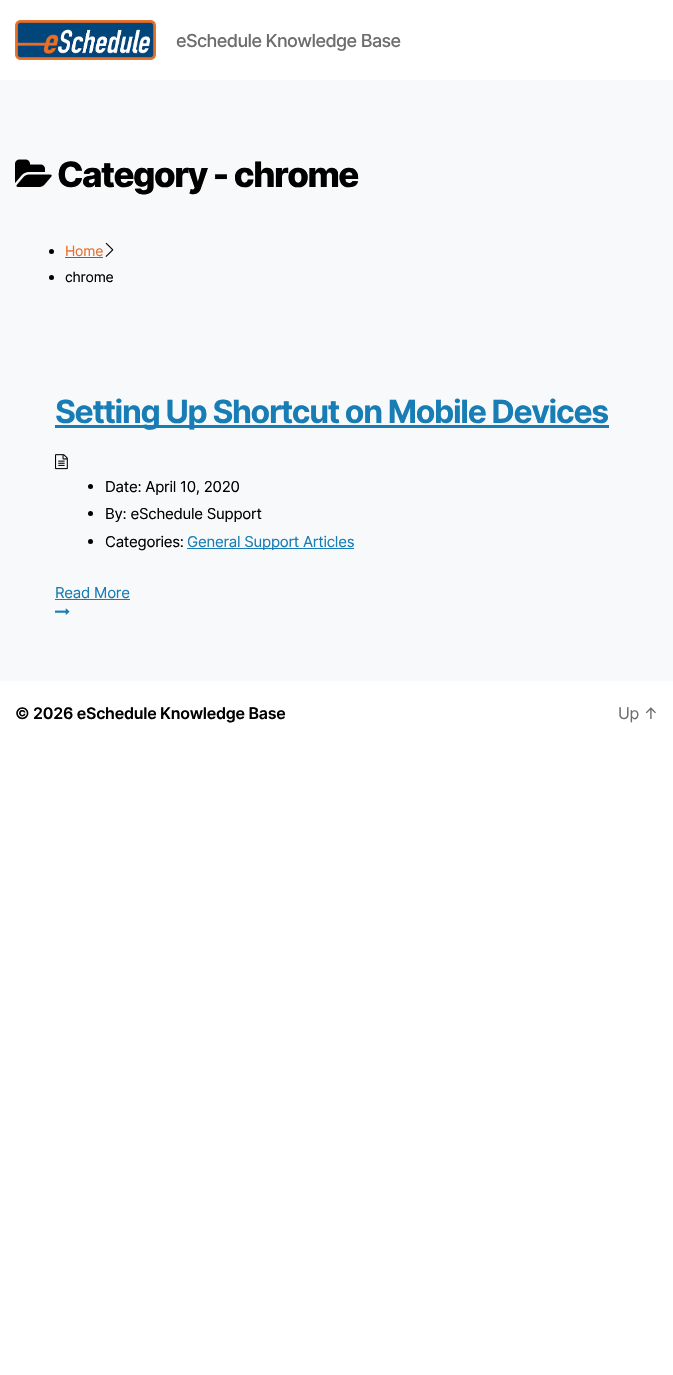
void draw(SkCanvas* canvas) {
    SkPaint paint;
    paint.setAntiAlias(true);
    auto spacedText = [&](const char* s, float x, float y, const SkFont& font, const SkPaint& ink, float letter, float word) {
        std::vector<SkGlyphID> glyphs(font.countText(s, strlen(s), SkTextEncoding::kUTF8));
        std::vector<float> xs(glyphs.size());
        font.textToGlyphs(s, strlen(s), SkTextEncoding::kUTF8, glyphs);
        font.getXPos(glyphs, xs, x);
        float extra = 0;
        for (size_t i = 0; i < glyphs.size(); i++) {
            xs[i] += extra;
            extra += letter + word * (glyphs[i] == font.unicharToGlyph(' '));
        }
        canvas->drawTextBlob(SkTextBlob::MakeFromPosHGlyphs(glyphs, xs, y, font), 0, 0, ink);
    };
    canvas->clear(0xFFFFFFFF);
    canvas->drawImageRect(SkImages::DeferredFromEncodedData(SkData::MakeFromFileName("img1.png")), SkRect::MakeXYWH(15, 20, 141, 40), SkSamplingOptions());
    SkFont font1(fontMgr->matchFamilyStyle("Inter", SkFontStyle(500, SkFontStyle::kNormal_Width, SkFontStyle::kUpright_Slant)), 18);
    font1.setSubpixel(true);
    paint.setColor(0xFF6D6D6D);
    spacedText("eSchedule Knowledge Base", 176, 47, font1, paint, -0.6f, 0);
    paint.setColor(0xFFF8F9FA);
    canvas->drawRect(SkRect::MakeXYWH(0, 80, 673, 601), paint);
    canvas->drawImageRect(SkImages::DeferredFromEncodedData(SkData::MakeFromFileName("img2.png")), SkRect::MakeXYWH(15, 159, 37, 28), SkSamplingOptions());
    SkFont font2(fontMgr->matchFamilyStyle("Inter", SkFontStyle(800, SkFontStyle::kNormal_Width, SkFontStyle::kUpright_Slant)), 35);
    font2.setSubpixel(true);
    paint.setColor(0xFF000000);
    spacedText("Category - chrome", 57, 187, font2, paint, -1.5f, 0);
    canvas->drawCircle(51.5f, 251.5f, 2.5f, paint);
    SkFont font3(fontMgr->matchFamilyStyle("Inter", SkFontStyle::Normal()), 14);
    font3.setSubpixel(true);
    paint.setColor(0xFFE96F30);
    spacedText("Home", 65, 256, font3, paint, -0.25f, 0);
    paint.setColor(0xFF177DB4);
    canvas->drawRect(SkRect::MakeXYWH(65, 257, 38, 1), paint);
    canvas->drawImageRect(SkImages::DeferredFromEncodedData(SkData::MakeFromFileName("img3.png")), SkRect::MakeXYWH(105, 242, 9, 15), SkSamplingOptions());
    paint.setColor(0xFF000000);
    canvas->drawCircle(51.5f, 277.5f, 2.5f, paint);
    spacedText("chrome", 65, 282, font3, paint, -0.25f, 0);
    paint.setColor(0xFF177DB4);
    canvas->drawRect(SkRect::MakeXYWH(55, 425, 554, 3), paint);
    SkFont font4(fontMgr->matchFamilyStyle("Inter", SkFontStyle::Bold()), 32);
    font4.setSubpixel(true);
    spacedText("Setting Up Shortcut on Mobile Devices", 55, 423, font4, paint, -1.35f, 0);
    canvas->drawImageRect(SkImages::DeferredFromEncodedData(SkData::MakeFromFileName("img4.png")), SkRect::MakeXYWH(55, 454, 13, 16), SkSamplingOptions());
    paint.setColor(0xFF000000);
    canvas->drawCircle(90.5f, 486.5f, 2.5f, paint);
    SkFont font5(fontMgr->matchFamilyStyle("Inter", SkFontStyle::Normal()), 15);
    font5.setSubpixel(true);
    spacedText("Date: April 10, 2020", 105, 492, font5, paint, -0.25f, 0);
    canvas->drawCircle(90.5f, 513.5f, 2.5f, paint);
    spacedText("By: eSchedule Support", 105, 519, font5, paint, -0.25f, 0);
    canvas->drawCircle(90.5f, 541.5f, 2.5f, paint);
    spacedText("Categories:", 105, 547, font5, paint, -0.25f, 0);
    paint.setColor(0xFF177DB4);
    canvas->drawRect(SkRect::MakeXYWH(187, 548, 167, 1), paint);
    spacedText("General Support Articles", 187, 547, font5, paint, -0.25f, 0);
    spacedText("Read More", 55, 598, font5, paint, -0.25f, 0);
    canvas->drawRect(SkRect::MakeXYWH(55, 599, 75, 1), paint);
    canvas->drawImageRect(SkImages::DeferredFromEncodedData(SkData::MakeFromFileName("img5.png")), SkRect::MakeXYWH(55, 608, 15, 7), SkSamplingOptions());
    SkFont font6(fontMgr->matchFamilyStyle("Inter", SkFontStyle(600, SkFontStyle::kNormal_Width, SkFontStyle::kUpright_Slant)), 16);
    font6.setSubpixel(true);
    paint.setColor(0xFF000000);
    spacedText("© 2026 eSchedule Knowledge Base", 15, 719, font6, paint, -0.25f, 0);
    SkFont font7(fontMgr->matchFamilyStyle("Inter", SkFontStyle::Normal()), 16);
    font7.setSubpixel(true);
    paint.setColor(0xFF6D6D6D);
    spacedText("Up ↑", 618, 719, font7, paint, -0.25f, 0);
}
